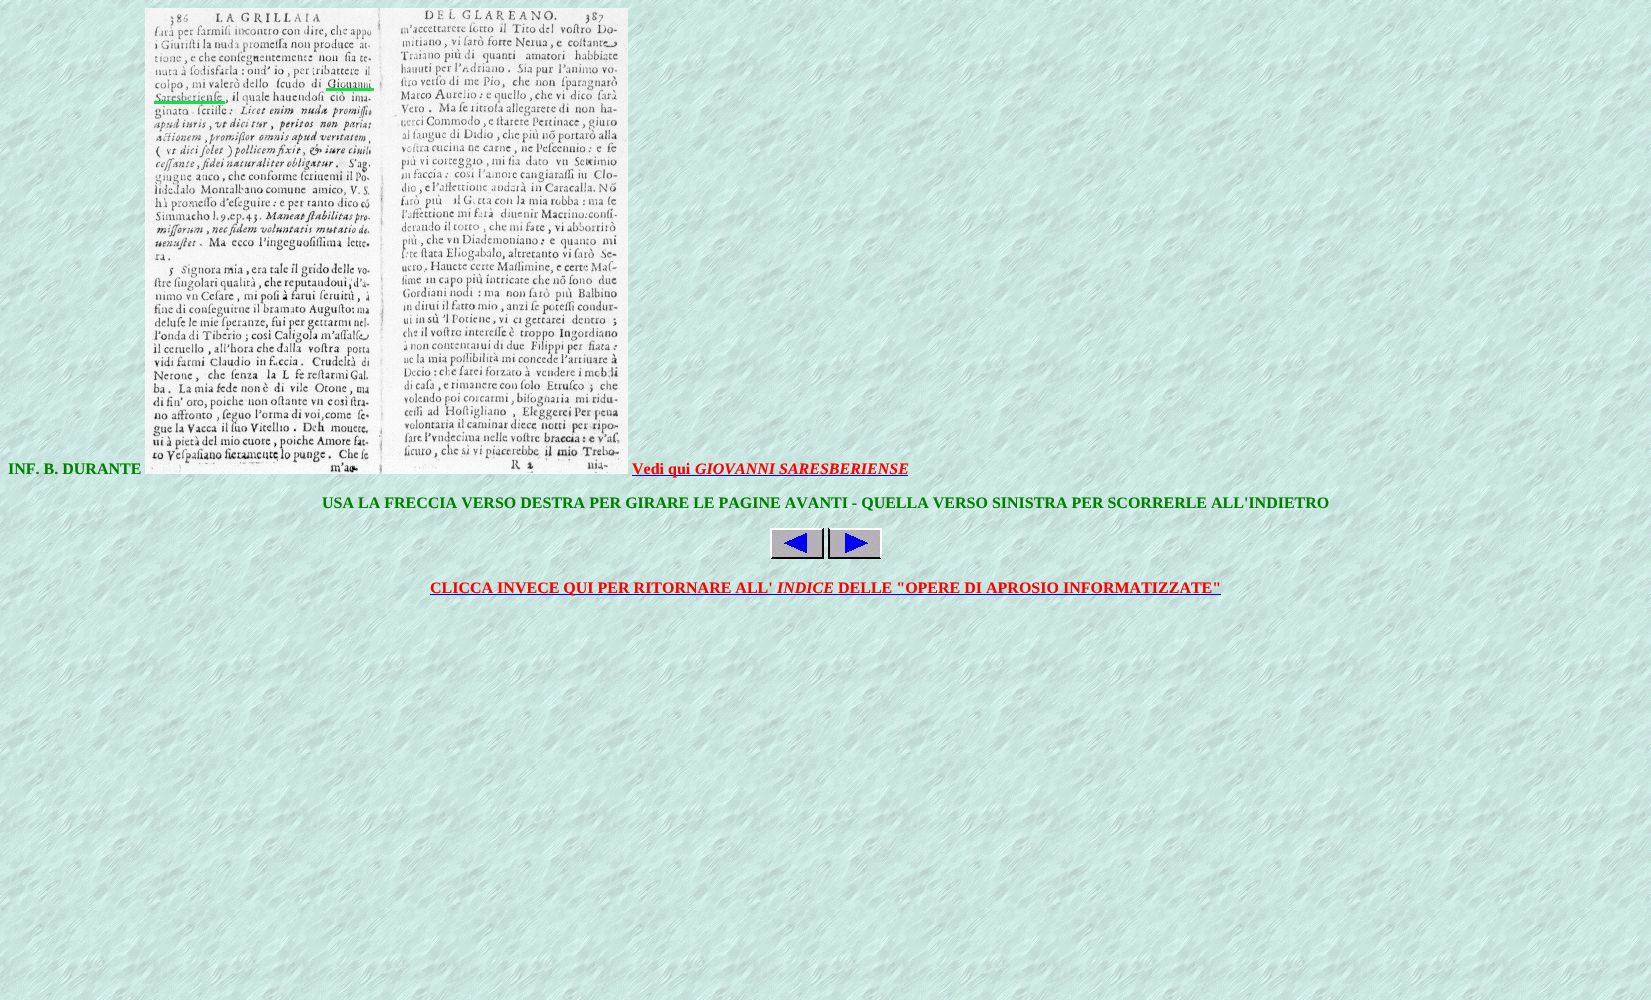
void draw(SkCanvas* canvas) {
    SkPaint paint;
    paint.setAntiAlias(true);
    canvas->clear(0xFFFFFFFF);
    canvas->drawImageRect(SkImages::DeferredFromEncodedData(SkData::MakeFromFileName("img1.png")), SkRect::MakeXYWH(0, 0, 1651, 1000), SkSamplingOptions());
    SkFont font1(fontMgr->matchFamilyStyle("Liberation Serif", SkFontStyle::Bold()), 16);
    font1.setSubpixel(true);
    paint.setColor(0xFF008000);
    canvas->drawString("INF. B. DURANTE", 8, 474, font1, paint);
    canvas->drawImageRect(SkImages::DeferredFromEncodedData(SkData::MakeFromFileName("img2.png")), SkRect::MakeXYWH(145, 8, 483, 466), SkSamplingOptions());
    paint.setColor(0xFF0000FF);
    canvas->drawRect(SkRect::MakeXYWH(632, 475, 276, 1), paint);
    paint.setColor(0xFFFF0000);
    canvas->drawString("Vedi qui", 632, 474, font1, paint);
    SkFont font2(fontMgr->matchFamilyStyle("Liberation Serif", SkFontStyle::BoldItalic()), 16);
    font2.setSubpixel(true);
    canvas->drawString("GIOVANNI SARESBERIENSE", 695, 474, font2, paint);
    paint.setColor(0xFF008000);
    canvas->drawString("USA LA FRECCIA VERSO DESTRA PER GIRARE LE PAGINE AVANTI - QUELLA VERSO SINISTRA PER SCORRERLE ALL'INDIETRO", 322, 508, font1, paint);
    canvas->drawImageRect(SkImages::DeferredFromEncodedData(SkData::MakeFromFileName("img3.png")), SkRect::MakeXYWH(770, 528, 54, 31), SkSamplingOptions());
    canvas->drawImageRect(SkImages::DeferredFromEncodedData(SkData::MakeFromFileName("img4.png")), SkRect::MakeXYWH(828, 528, 54, 31), SkSamplingOptions());
    paint.setColor(0xFF0000FF);
    canvas->drawRect(SkRect::MakeXYWH(430, 594, 791, 1), paint);
    paint.setColor(0xFFFF0000);
    canvas->drawString("CLICCA INVECE QUI PER RITORNARE ALL'", 430, 593, font1, paint);
    canvas->drawString("INDICE", 777, 593, font2, paint);
    canvas->drawString("DELLE \"OPERE DI APROSIO INFORMATIZZATE\"", 838, 593, font1, paint);
}
